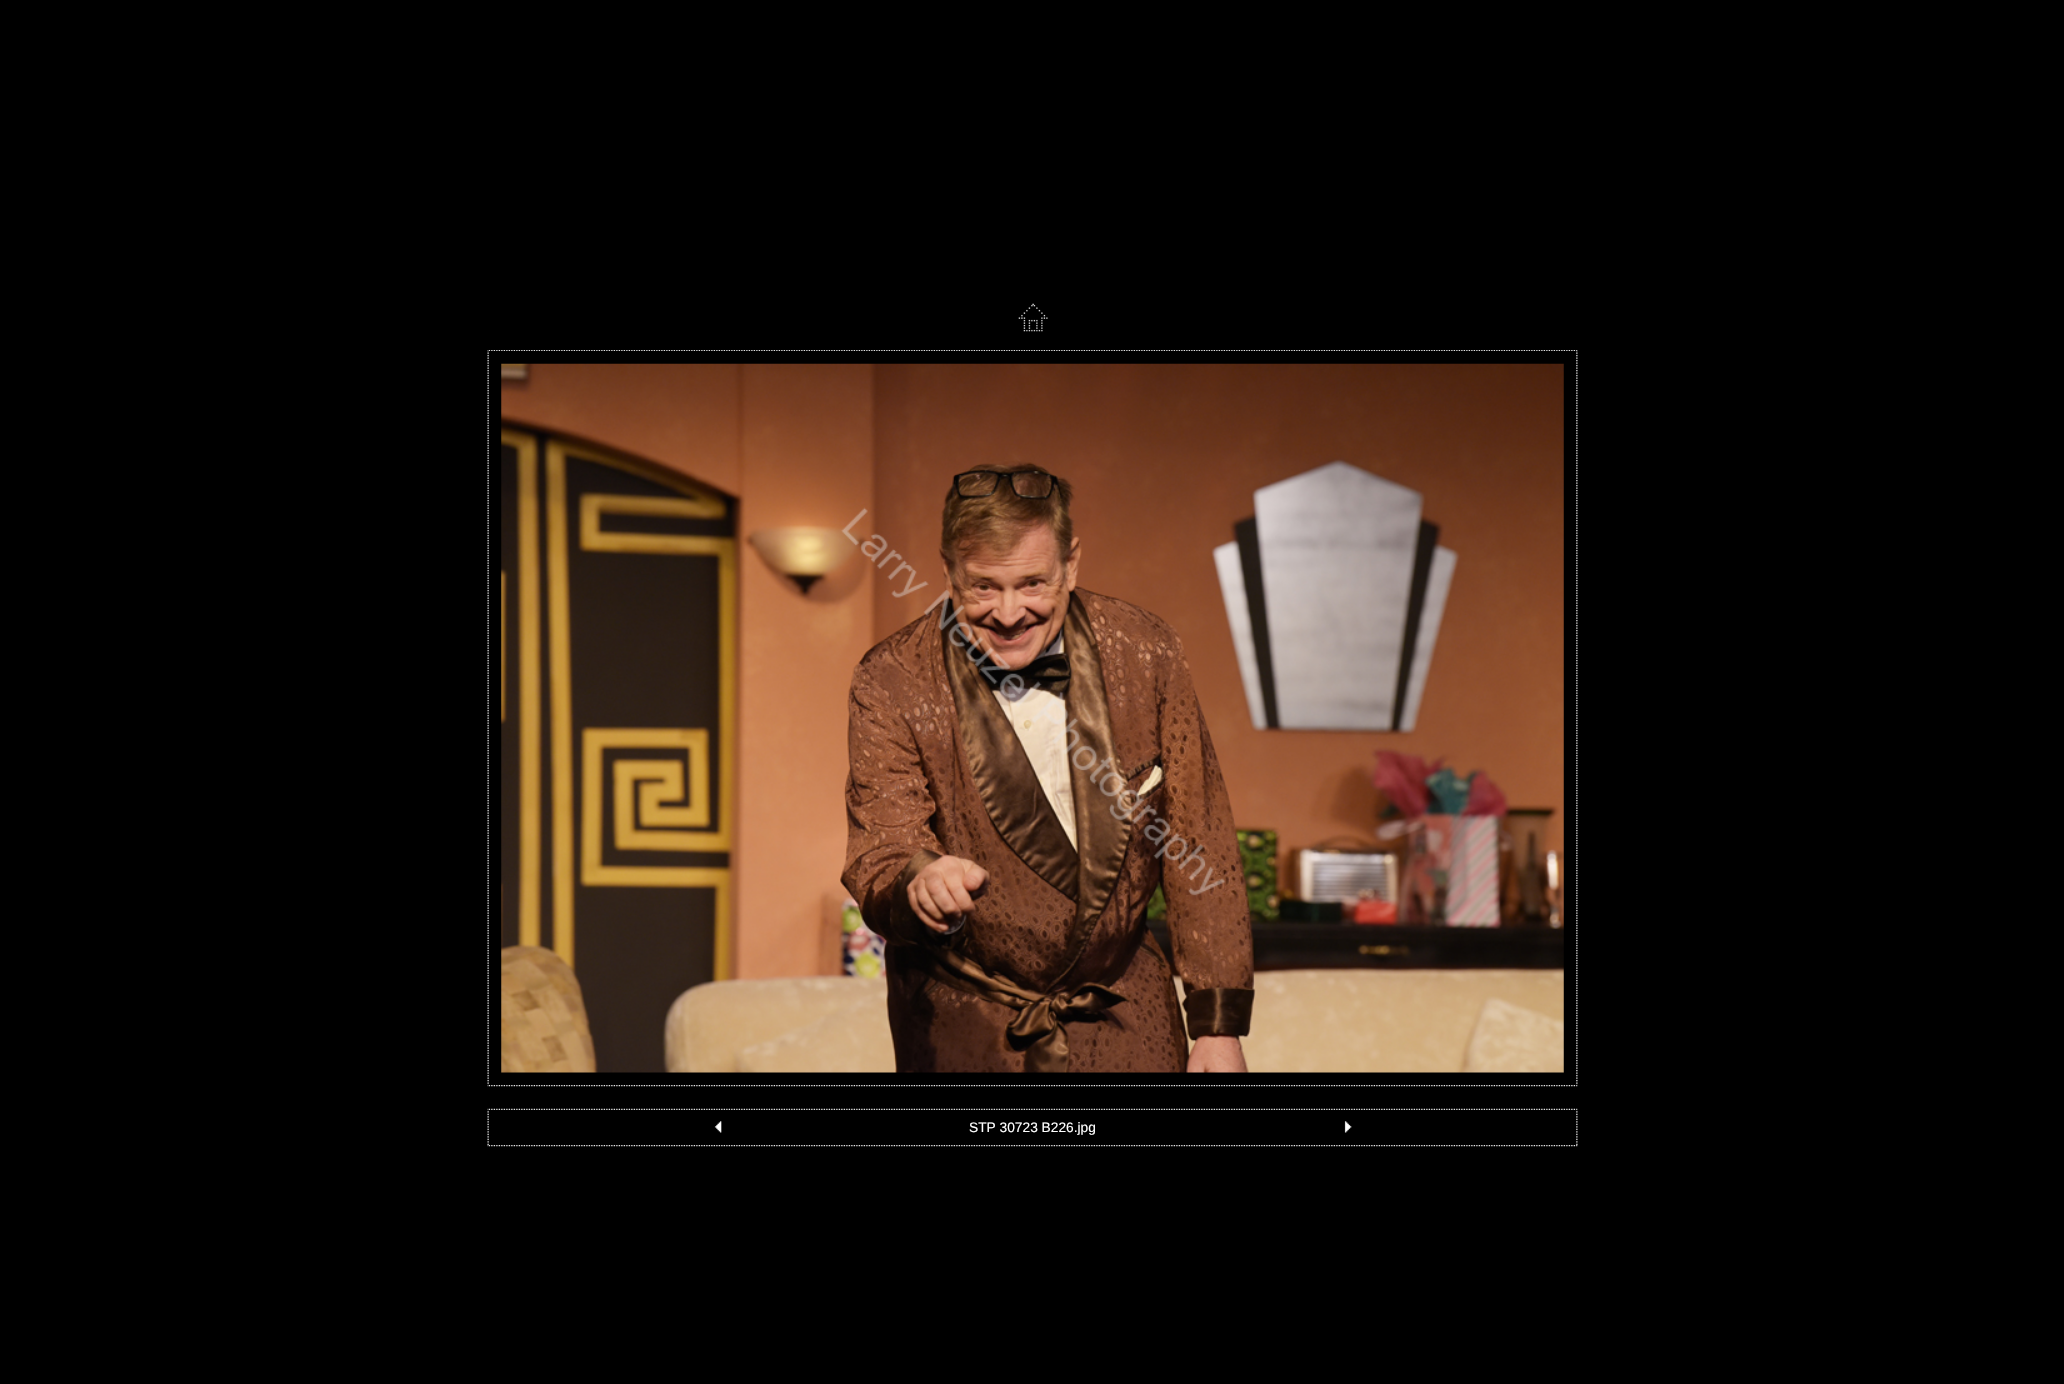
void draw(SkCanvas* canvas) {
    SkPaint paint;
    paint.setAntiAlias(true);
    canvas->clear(0xFF000000);
    canvas->drawImageRect(SkImages::DeferredFromEncodedData(SkData::MakeFromFileName("img1.png")), SkRect::MakeXYWH(1018, 303, 30, 29), SkSamplingOptions());
    canvas->drawImageRect(SkImages::DeferredFromEncodedData(SkData::MakeFromFileName("img2.png")), SkRect::MakeXYWH(487, 350, 1091, 2), SkSamplingOptions());
    canvas->drawImageRect(SkImages::DeferredFromEncodedData(SkData::MakeFromFileName("img3.png")), SkRect::MakeXYWH(487, 351, 2, 734), SkSamplingOptions());
    paint.setColor(0xFF000000);
    canvas->drawRect(SkRect::MakeXYWH(489, 351, 1087, 1), paint);
    canvas->drawImageRect(SkImages::DeferredFromEncodedData(SkData::MakeFromFileName("img4.png")), SkRect::MakeXYWH(501, 363, 1063, 710), SkSamplingOptions());
    canvas->drawImageRect(SkImages::DeferredFromEncodedData(SkData::MakeFromFileName("img5.png")), SkRect::MakeXYWH(1576, 351, 2, 734), SkSamplingOptions());
    canvas->drawImageRect(SkImages::DeferredFromEncodedData(SkData::MakeFromFileName("img2.png")), SkRect::MakeXYWH(487, 1085, 1091, 2), SkSamplingOptions());
    canvas->drawImageRect(SkImages::DeferredFromEncodedData(SkData::MakeFromFileName("img6.png")), SkRect::MakeXYWH(487, 1108, 1091, 2), SkSamplingOptions());
    canvas->drawImageRect(SkImages::DeferredFromEncodedData(SkData::MakeFromFileName("img7.png")), SkRect::MakeXYWH(487, 1110, 2, 35), SkSamplingOptions());
    canvas->drawImageRect(SkImages::DeferredFromEncodedData(SkData::MakeFromFileName("img8.png")), SkRect::MakeXYWH(714, 1121, 8, 12), SkSamplingOptions());
    SkFont font1(fontMgr->matchFamilyStyle("Liberation Sans", SkFontStyle::Normal()), 13.75f);
    font1.setSubpixel(true);
    paint.setColor(0xFFFFFFFF);
    canvas->drawString("STP 30723 B226.jpg", 969, 1132, font1, paint);
    canvas->drawImageRect(SkImages::DeferredFromEncodedData(SkData::MakeFromFileName("img9.png")), SkRect::MakeXYWH(1344, 1121, 8, 12), SkSamplingOptions());
    canvas->drawImageRect(SkImages::DeferredFromEncodedData(SkData::MakeFromFileName("img10.png")), SkRect::MakeXYWH(1576, 1110, 2, 35), SkSamplingOptions());
    canvas->drawImageRect(SkImages::DeferredFromEncodedData(SkData::MakeFromFileName("img2.png")), SkRect::MakeXYWH(487, 1145, 1091, 2), SkSamplingOptions());
}
